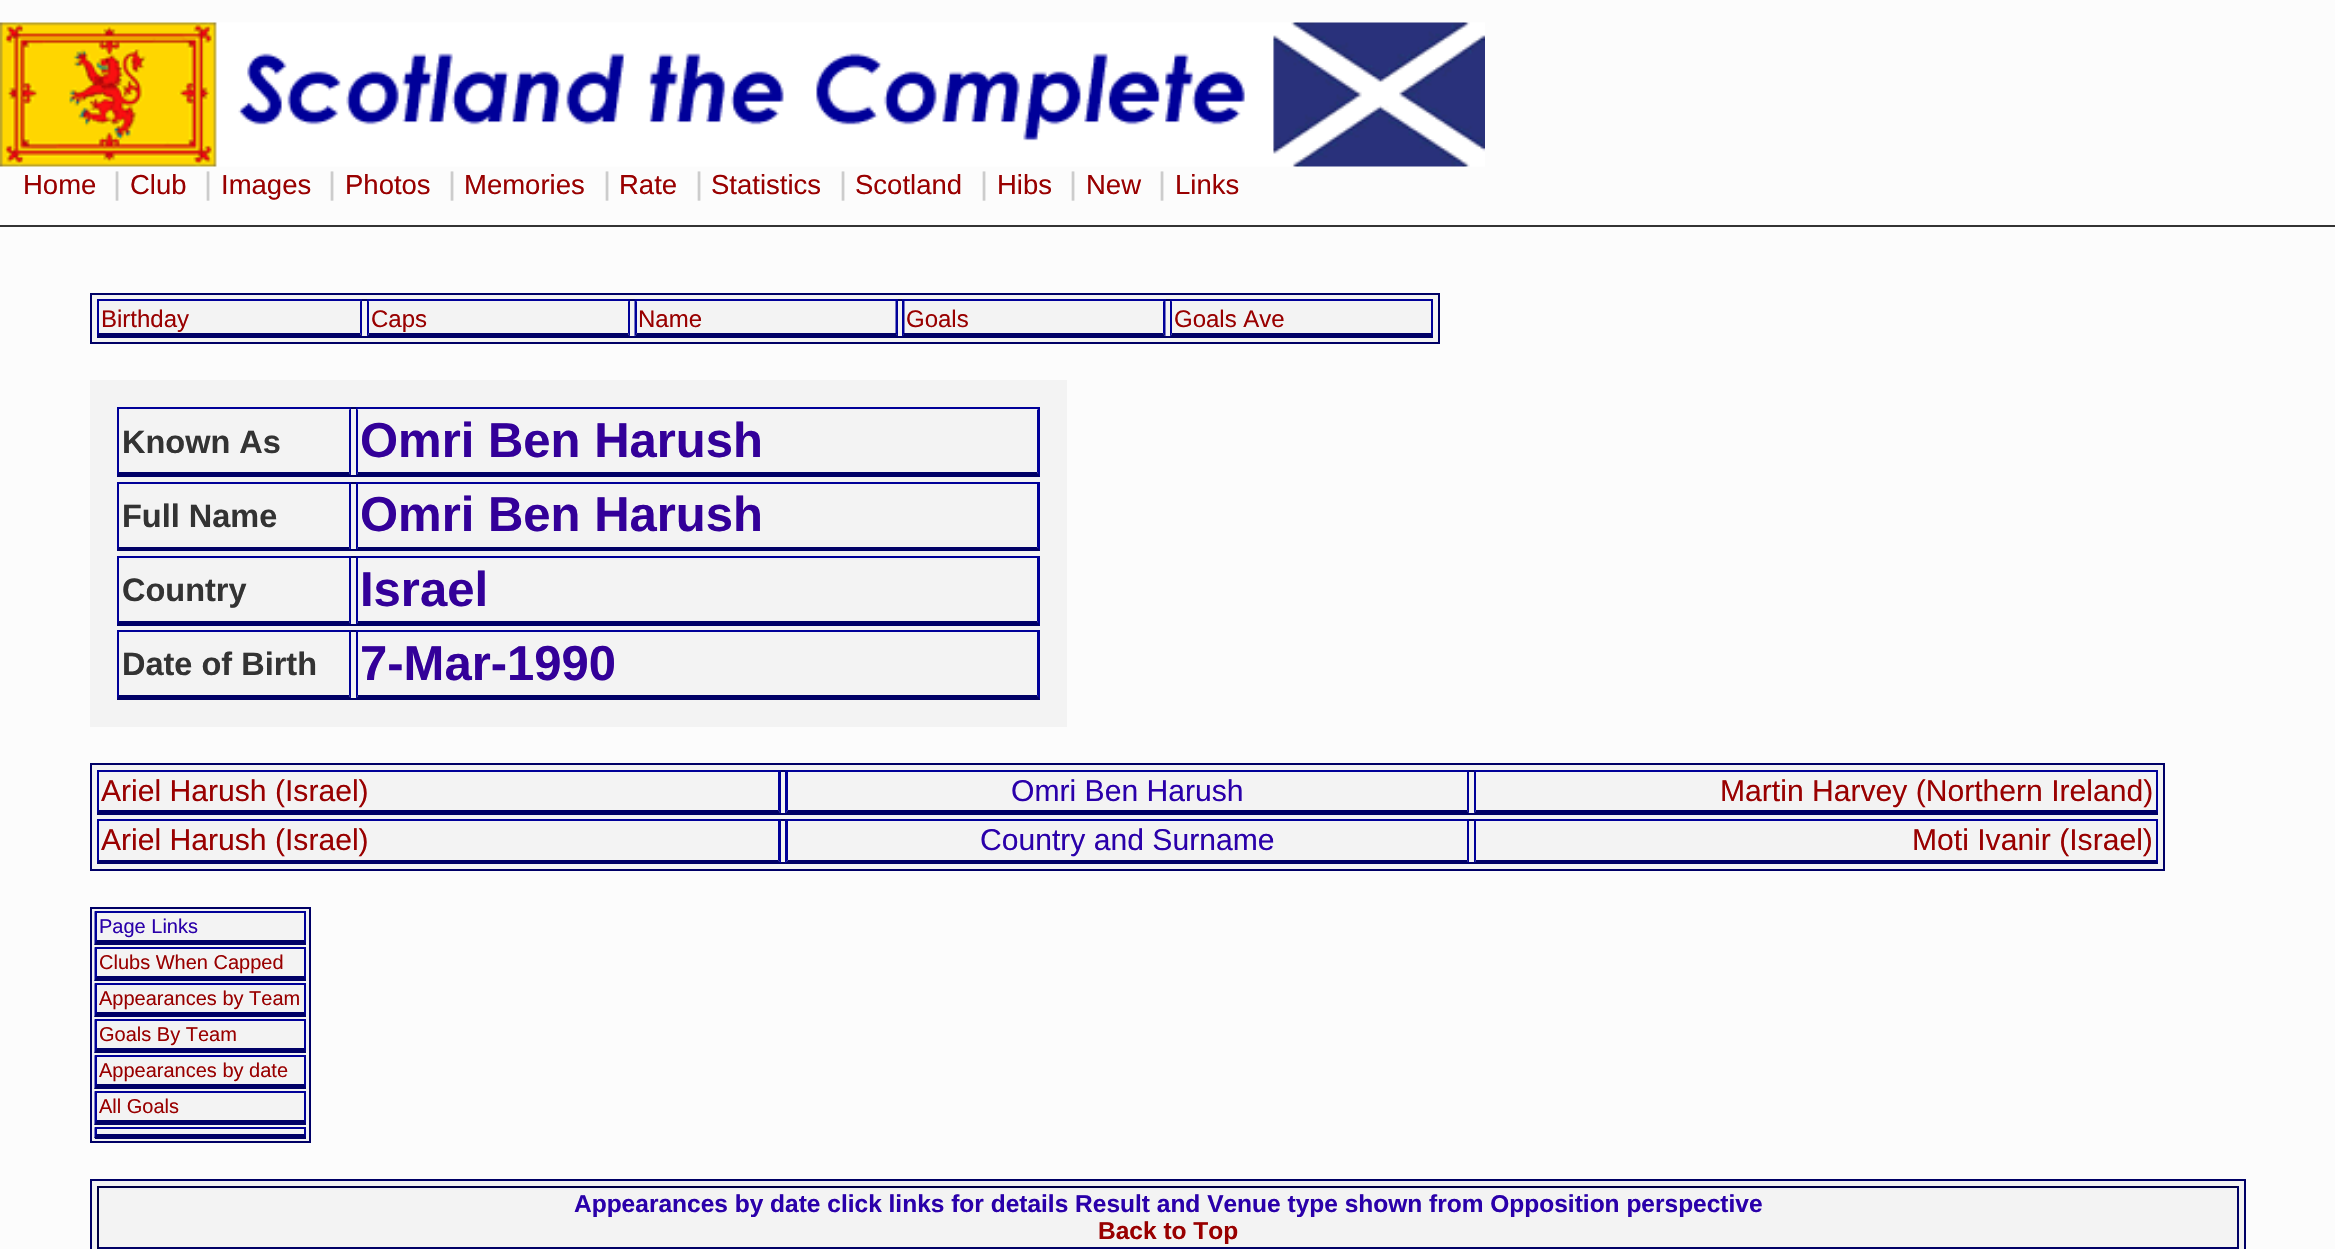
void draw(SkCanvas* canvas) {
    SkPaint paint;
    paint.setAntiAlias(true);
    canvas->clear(0xFFFCFCFC);
    paint.setColor(0xFF333333);
    canvas->drawRect(SkRect::MakeXYWH(0, 225, 2335, 2), paint);
    canvas->drawImageRect(SkImages::DeferredFromEncodedData(SkData::MakeFromFileName("img1.png")), SkRect::MakeXYWH(0, 22, 1485, 145), SkSamplingOptions());
    SkFont font1(fontMgr->matchFamilyStyle("Liberation Sans", SkFontStyle::Normal()), 27.5f);
    font1.setSubpixel(true);
    paint.setColor(0xFF990000);
    canvas->drawString("Home", 23, 194, font1, paint);
    SkFont font2(fontMgr->matchFamilyStyle("Liberation Sans", SkFontStyle::Normal()), 31);
    font2.setSubpixel(true);
    paint.setColor(0xFFCCCCCC);
    canvas->drawString("|", 113, 194, font2, paint);
    paint.setColor(0xFF990000);
    canvas->drawString("Club", 130, 194, font1, paint);
    paint.setColor(0xFFCCCCCC);
    canvas->drawString("|", 204, 194, font2, paint);
    paint.setColor(0xFF990000);
    canvas->drawString("Images", 221, 194, font1, paint);
    paint.setColor(0xFFCCCCCC);
    canvas->drawString("|", 328, 194, font2, paint);
    paint.setColor(0xFF990000);
    canvas->drawString("Photos", 345, 194, font1, paint);
    paint.setColor(0xFFCCCCCC);
    canvas->drawString("|", 448, 194, font2, paint);
    paint.setColor(0xFF990000);
    canvas->drawString("Memories", 464, 194, font1, paint);
    paint.setColor(0xFFCCCCCC);
    canvas->drawString("|", 603, 194, font2, paint);
    paint.setColor(0xFF990000);
    canvas->drawString("Rate", 619, 194, font1, paint);
    paint.setColor(0xFFCCCCCC);
    canvas->drawString("|", 695, 194, font2, paint);
    paint.setColor(0xFF990000);
    canvas->drawString("Statistics", 711, 194, font1, paint);
    paint.setColor(0xFFCCCCCC);
    canvas->drawString("|", 839, 194, font2, paint);
    paint.setColor(0xFF990000);
    canvas->drawString("Scotland", 855, 194, font1, paint);
    paint.setColor(0xFFCCCCCC);
    canvas->drawString("|", 980, 194, font2, paint);
    paint.setColor(0xFF990000);
    canvas->drawString("Hibs", 997, 194, font1, paint);
    paint.setColor(0xFFCCCCCC);
    canvas->drawString("|", 1069, 194, font2, paint);
    paint.setColor(0xFF990000);
    canvas->drawString("New", 1086, 194, font1, paint);
    paint.setColor(0xFFCCCCCC);
    canvas->drawString("|", 1158, 194, font2, paint);
    paint.setColor(0xFF990000);
    canvas->drawString("Links", 1175, 194, font1, paint);
    paint.setColor(0xFFF3F3F3);
    canvas->drawRect(SkRect::MakeXYWH(91, 294, 1348, 49), paint);
    paint.setStyle(SkPaint::kStroke_Style);
    paint.setStrokeWidth(2);
    paint.setColor(0xFF000066);
    canvas->drawRect(SkRect::MakeXYWH(91, 294, 1348, 49), paint);
    canvas->drawRect(SkRect::MakeXYWH(98, 300, 1334, 37), paint);
    paint.setStyle(SkPaint::kFill_Style);
    paint.setColor(0xFF000099);
    canvas->drawRect(SkRect::MakeXYWH(97, 299, 265, 2), paint);
    canvas->drawPath(SkPathBuilder().moveTo(362, 299).lineTo(362, 337.5f).lineTo(360, 333).lineTo(360, 301.5f).close().detach(), paint);
    paint.setColor(0xFF000066);
    canvas->drawPath(SkPathBuilder().moveTo(362, 338).lineTo(97, 338).lineTo(99, 333).lineTo(360, 333).close().detach(), paint);
    paint.setColor(0xFF000099);
    canvas->drawPath(SkPathBuilder().moveTo(97, 337.5f).lineTo(97, 299).lineTo(99, 301.5f).lineTo(99, 333).close().detach(), paint);
    SkFont font3(fontMgr->matchFamilyStyle("Liberation Sans", SkFontStyle::Normal()), 24);
    font3.setSubpixel(true);
    paint.setColor(0xFF990000);
    canvas->drawString("Birthday", 101, 327, font3, paint);
    paint.setColor(0xFF000099);
    canvas->drawRect(SkRect::MakeXYWH(367, 299, 263, 2), paint);
    canvas->drawPath(SkPathBuilder().moveTo(630, 299).lineTo(630, 337.5f).lineTo(628, 333).lineTo(628, 301.5f).close().detach(), paint);
    paint.setColor(0xFF000066);
    canvas->drawPath(SkPathBuilder().moveTo(630, 338).lineTo(367, 338).lineTo(369, 333).lineTo(628, 333).close().detach(), paint);
    paint.setColor(0xFF000099);
    canvas->drawPath(SkPathBuilder().moveTo(367, 337.5f).lineTo(367, 299).lineTo(369, 301.5f).lineTo(369, 333).close().detach(), paint);
    paint.setColor(0xFF990000);
    canvas->drawString("Caps", 371, 327, font3, paint);
    paint.setColor(0xFF000099);
    canvas->drawRect(SkRect::MakeXYWH(635, 299, 263, 2), paint);
    canvas->drawPath(SkPathBuilder().moveTo(898, 299).lineTo(898, 337.5f).lineTo(895.5f, 333).lineTo(895.5f, 301.5f).close().detach(), paint);
    paint.setColor(0xFF000066);
    canvas->drawPath(SkPathBuilder().moveTo(898, 338).lineTo(634, 338).lineTo(637, 333).lineTo(896, 333).close().detach(), paint);
    paint.setColor(0xFF000099);
    canvas->drawPath(SkPathBuilder().moveTo(634.5f, 337.5f).lineTo(634.5f, 299).lineTo(637, 301.5f).lineTo(637, 333).close().detach(), paint);
    paint.setColor(0xFF990000);
    canvas->drawString("Name", 638, 327, font3, paint);
    paint.setColor(0xFF000099);
    canvas->drawRect(SkRect::MakeXYWH(902, 299, 264, 2), paint);
    canvas->drawPath(SkPathBuilder().moveTo(1165.5f, 299).lineTo(1165.5f, 337.5f).lineTo(1163, 333).lineTo(1163, 301.5f).close().detach(), paint);
    paint.setColor(0xFF000066);
    canvas->drawPath(SkPathBuilder().moveTo(1166, 338).lineTo(902, 338).lineTo(904, 333).lineTo(1163, 333).close().detach(), paint);
    paint.setColor(0xFF000099);
    canvas->drawPath(SkPathBuilder().moveTo(902, 337.5f).lineTo(902, 299).lineTo(904.5f, 301.5f).lineTo(904.5f, 333).close().detach(), paint);
    paint.setColor(0xFF990000);
    canvas->drawString("Goals", 906, 327, font3, paint);
    paint.setColor(0xFF000099);
    canvas->drawRect(SkRect::MakeXYWH(1170, 299, 263, 2), paint);
    canvas->drawPath(SkPathBuilder().moveTo(1433, 299).lineTo(1433, 337.5f).lineTo(1431, 333).lineTo(1431, 301.5f).close().detach(), paint);
    paint.setColor(0xFF000066);
    canvas->drawPath(SkPathBuilder().moveTo(1433, 338).lineTo(1170, 338).lineTo(1172, 333).lineTo(1431, 333).close().detach(), paint);
    paint.setColor(0xFF000099);
    canvas->drawPath(SkPathBuilder().moveTo(1170, 337.5f).lineTo(1170, 299).lineTo(1172, 301.5f).lineTo(1172, 333).close().detach(), paint);
    paint.setColor(0xFF990000);
    canvas->drawString("Goals Ave", 1174, 327, font3, paint);
    paint.setColor(0xFFF3F3F3);
    canvas->drawRect(SkRect::MakeXYWH(90, 380, 977, 347), paint);
    paint.setStyle(SkPaint::kStroke_Style);
    paint.setColor(0xFF000066);
    canvas->drawRect(SkRect::MakeXYWH(118, 408, 921, 68), paint);
    paint.setStyle(SkPaint::kFill_Style);
    paint.setColor(0xFF000099);
    canvas->drawRect(SkRect::MakeXYWH(117, 407, 234, 2), paint);
    canvas->drawPath(SkPathBuilder().moveTo(351, 407).lineTo(351, 477).lineTo(349, 472).lineTo(349, 410).close().detach(), paint);
    paint.setColor(0xFF000066);
    canvas->drawPath(SkPathBuilder().moveTo(351, 477).lineTo(117, 477).lineTo(119, 472).lineTo(349, 472).close().detach(), paint);
    paint.setColor(0xFF000099);
    canvas->drawPath(SkPathBuilder().moveTo(117, 477).lineTo(117, 407).lineTo(119, 410).lineTo(119, 472).close().detach(), paint);
    SkFont font4(fontMgr->matchFamilyStyle("Liberation Sans", SkFontStyle::Bold()), 32.5f);
    font4.setSubpixel(true);
    paint.setColor(0xFF333333);
    canvas->drawString("Known As", 122, 453, font4, paint);
    paint.setColor(0xFF000099);
    canvas->drawRect(SkRect::MakeXYWH(356, 407, 684, 2), paint);
    canvas->drawPath(SkPathBuilder().moveTo(1040, 407).lineTo(1040, 477).lineTo(1037, 472).lineTo(1037, 410).close().detach(), paint);
    paint.setColor(0xFF000066);
    canvas->drawPath(SkPathBuilder().moveTo(1040, 477).lineTo(356, 477).lineTo(358, 472).lineTo(1037, 472).close().detach(), paint);
    paint.setColor(0xFF000099);
    canvas->drawPath(SkPathBuilder().moveTo(356, 477).lineTo(356, 407).lineTo(358, 410).lineTo(358, 472).close().detach(), paint);
    SkFont font5(fontMgr->matchFamilyStyle("Liberation Sans", SkFontStyle::Bold()), 49);
    font5.setSubpixel(true);
    paint.setColor(0xFF330099);
    canvas->drawString("Omri Ben Harush", 360, 457, font5, paint);
    paint.setStyle(SkPaint::kStroke_Style);
    paint.setColor(0xFF000066);
    canvas->drawRect(SkRect::MakeXYWH(118, 483, 921, 67), paint);
    paint.setStyle(SkPaint::kFill_Style);
    paint.setColor(0xFF000099);
    canvas->drawRect(SkRect::MakeXYWH(117, 482, 234, 2), paint);
    canvas->drawPath(SkPathBuilder().moveTo(351, 482).lineTo(351, 551).lineTo(349, 547).lineTo(349, 484).close().detach(), paint);
    paint.setColor(0xFF000066);
    canvas->drawPath(SkPathBuilder().moveTo(351, 551).lineTo(117, 551).lineTo(119, 547).lineTo(349, 547).close().detach(), paint);
    paint.setColor(0xFF000099);
    canvas->drawPath(SkPathBuilder().moveTo(117, 551).lineTo(117, 482).lineTo(119, 484).lineTo(119, 547).close().detach(), paint);
    paint.setColor(0xFF333333);
    canvas->drawString("Full Name", 122, 527, font4, paint);
    paint.setColor(0xFF000099);
    canvas->drawRect(SkRect::MakeXYWH(356, 482, 684, 2), paint);
    canvas->drawPath(SkPathBuilder().moveTo(1040, 482).lineTo(1040, 551).lineTo(1037, 547).lineTo(1037, 484).close().detach(), paint);
    paint.setColor(0xFF000066);
    canvas->drawPath(SkPathBuilder().moveTo(1040, 551).lineTo(356, 551).lineTo(358, 547).lineTo(1037, 547).close().detach(), paint);
    paint.setColor(0xFF000099);
    canvas->drawPath(SkPathBuilder().moveTo(356, 551).lineTo(356, 482).lineTo(358, 484).lineTo(358, 547).close().detach(), paint);
    paint.setColor(0xFF330099);
    canvas->drawString("Omri Ben Harush", 360, 531, font5, paint);
    paint.setStyle(SkPaint::kStroke_Style);
    paint.setColor(0xFF000066);
    canvas->drawRect(SkRect::MakeXYWH(118, 557, 921, 68), paint);
    paint.setStyle(SkPaint::kFill_Style);
    paint.setColor(0xFF000099);
    canvas->drawRect(SkRect::MakeXYWH(117, 556, 234, 2), paint);
    canvas->drawPath(SkPathBuilder().moveTo(351, 556).lineTo(351, 626).lineTo(349, 621).lineTo(349, 558).close().detach(), paint);
    paint.setColor(0xFF000066);
    canvas->drawPath(SkPathBuilder().moveTo(351, 626).lineTo(117, 626).lineTo(119, 621).lineTo(349, 621).close().detach(), paint);
    paint.setColor(0xFF000099);
    canvas->drawPath(SkPathBuilder().moveTo(117, 626).lineTo(117, 556).lineTo(119, 558).lineTo(119, 621).close().detach(), paint);
    paint.setColor(0xFF333333);
    canvas->drawString("Country", 122, 601, font4, paint);
    paint.setColor(0xFF000099);
    canvas->drawRect(SkRect::MakeXYWH(356, 556, 684, 2), paint);
    canvas->drawPath(SkPathBuilder().moveTo(1040, 556).lineTo(1040, 626).lineTo(1037, 621).lineTo(1037, 558).close().detach(), paint);
    paint.setColor(0xFF000066);
    canvas->drawPath(SkPathBuilder().moveTo(1040, 626).lineTo(356, 626).lineTo(358, 621).lineTo(1037, 621).close().detach(), paint);
    paint.setColor(0xFF000099);
    canvas->drawPath(SkPathBuilder().moveTo(356, 626).lineTo(356, 556).lineTo(358, 558).lineTo(358, 621).close().detach(), paint);
    paint.setColor(0xFF330099);
    canvas->drawString("Israel", 360, 606, font5, paint);
    paint.setStyle(SkPaint::kStroke_Style);
    paint.setColor(0xFF000066);
    canvas->drawRect(SkRect::MakeXYWH(118, 631, 921, 68), paint);
    paint.setStyle(SkPaint::kFill_Style);
    paint.setColor(0xFF000099);
    canvas->drawRect(SkRect::MakeXYWH(117, 630, 234, 2), paint);
    canvas->drawPath(SkPathBuilder().moveTo(351, 630).lineTo(351, 700).lineTo(349, 695).lineTo(349, 632).close().detach(), paint);
    paint.setColor(0xFF000066);
    canvas->drawPath(SkPathBuilder().moveTo(351, 700).lineTo(117, 700).lineTo(119, 695).lineTo(349, 695).close().detach(), paint);
    paint.setColor(0xFF000099);
    canvas->drawPath(SkPathBuilder().moveTo(117, 700).lineTo(117, 630).lineTo(119, 632).lineTo(119, 695).close().detach(), paint);
    paint.setColor(0xFF333333);
    canvas->drawString("Date of Birth", 122, 675, font4, paint);
    paint.setColor(0xFF000099);
    canvas->drawRect(SkRect::MakeXYWH(356, 630, 684, 2), paint);
    canvas->drawPath(SkPathBuilder().moveTo(1040, 630).lineTo(1040, 700).lineTo(1037, 695).lineTo(1037, 632).close().detach(), paint);
    paint.setColor(0xFF000066);
    canvas->drawPath(SkPathBuilder().moveTo(1040, 700).lineTo(356, 700).lineTo(358, 695).lineTo(1037, 695).close().detach(), paint);
    paint.setColor(0xFF000099);
    canvas->drawPath(SkPathBuilder().moveTo(356, 700).lineTo(356, 630).lineTo(358, 632).lineTo(358, 695).close().detach(), paint);
    paint.setColor(0xFF330099);
    canvas->drawString("7-Mar-1990", 360, 680, font5, paint);
    paint.setColor(0xFFF3F3F3);
    canvas->drawRect(SkRect::MakeXYWH(91, 764, 2073, 106), paint);
    paint.setStyle(SkPaint::kStroke_Style);
    paint.setColor(0xFF000066);
    canvas->drawRect(SkRect::MakeXYWH(91, 764, 2073, 106), paint);
    canvas->drawRect(SkRect::MakeXYWH(98, 771, 2059, 43), paint);
    paint.setStyle(SkPaint::kFill_Style);
    paint.setColor(0xFF000099);
    canvas->drawRect(SkRect::MakeXYWH(97, 770, 684, 2), paint);
    canvas->drawPath(SkPathBuilder().moveTo(781, 770).lineTo(781, 814).lineTo(778, 810).lineTo(778, 772).close().detach(), paint);
    paint.setColor(0xFF000066);
    canvas->drawPath(SkPathBuilder().moveTo(781, 814).lineTo(97, 814).lineTo(99, 810).lineTo(778, 810).close().detach(), paint);
    paint.setColor(0xFF000099);
    canvas->drawPath(SkPathBuilder().moveTo(97, 814).lineTo(97, 770).lineTo(99, 772).lineTo(99, 810).close().detach(), paint);
    SkFont font6(fontMgr->matchFamilyStyle("Liberation Sans", SkFontStyle::Normal()), 30.1f);
    font6.setSubpixel(true);
    paint.setColor(0xFF990000);
    canvas->drawString("Ariel Harush (Israel)", 101, 801, font6, paint);
    paint.setColor(0xFF000099);
    canvas->drawRect(SkRect::MakeXYWH(785, 770, 684, 2), paint);
    canvas->drawPath(SkPathBuilder().moveTo(1469, 770).lineTo(1469, 814).lineTo(1467, 810).lineTo(1467, 772).close().detach(), paint);
    paint.setColor(0xFF000066);
    canvas->drawPath(SkPathBuilder().moveTo(1469, 814).lineTo(785, 814).lineTo(788, 810).lineTo(1467, 810).close().detach(), paint);
    paint.setColor(0xFF000099);
    canvas->drawPath(SkPathBuilder().moveTo(785, 814).lineTo(785, 770).lineTo(788, 772).lineTo(788, 810).close().detach(), paint);
    paint.setColor(0xFF2A00AA);
    canvas->drawString("Omri Ben Harush", 1011, 801, font6, paint);
    paint.setColor(0xFF000099);
    canvas->drawRect(SkRect::MakeXYWH(1474, 770, 684, 2), paint);
    canvas->drawPath(SkPathBuilder().moveTo(2158, 770).lineTo(2158, 814).lineTo(2156, 810).lineTo(2156, 772).close().detach(), paint);
    paint.setColor(0xFF000066);
    canvas->drawPath(SkPathBuilder().moveTo(2158, 814).lineTo(1474, 814).lineTo(1476, 810).lineTo(2156, 810).close().detach(), paint);
    paint.setColor(0xFF000099);
    canvas->drawPath(SkPathBuilder().moveTo(1474, 814).lineTo(1474, 770).lineTo(1476, 772).lineTo(1476, 810).close().detach(), paint);
    paint.setColor(0xFF990000);
    canvas->drawString("Martin Harvey (Northern Ireland)", 1720, 801, font6, paint);
    paint.setStyle(SkPaint::kStroke_Style);
    paint.setColor(0xFF000066);
    canvas->drawRect(SkRect::MakeXYWH(98, 820, 2059, 43), paint);
    paint.setStyle(SkPaint::kFill_Style);
    paint.setColor(0xFF000099);
    canvas->drawRect(SkRect::MakeXYWH(97, 819, 684, 2), paint);
    canvas->drawPath(SkPathBuilder().moveTo(781, 819).lineTo(781, 864).lineTo(778, 860).lineTo(778, 821).close().detach(), paint);
    paint.setColor(0xFF000066);
    canvas->drawPath(SkPathBuilder().moveTo(781, 864).lineTo(97, 864).lineTo(99, 860).lineTo(778, 860).close().detach(), paint);
    paint.setColor(0xFF000099);
    canvas->drawPath(SkPathBuilder().moveTo(97, 864).lineTo(97, 819).lineTo(99, 821).lineTo(99, 860).close().detach(), paint);
    paint.setColor(0xFF990000);
    canvas->drawString("Ariel Harush (Israel)", 101, 850, font6, paint);
    paint.setColor(0xFF000099);
    canvas->drawRect(SkRect::MakeXYWH(785, 819, 684, 2), paint);
    canvas->drawPath(SkPathBuilder().moveTo(1469, 819).lineTo(1469, 864).lineTo(1467, 860).lineTo(1467, 821).close().detach(), paint);
    paint.setColor(0xFF000066);
    canvas->drawPath(SkPathBuilder().moveTo(1469, 864).lineTo(785, 864).lineTo(788, 860).lineTo(1467, 860).close().detach(), paint);
    paint.setColor(0xFF000099);
    canvas->drawPath(SkPathBuilder().moveTo(785, 864).lineTo(785, 819).lineTo(788, 821).lineTo(788, 860).close().detach(), paint);
    paint.setColor(0xFF2A00AA);
    canvas->drawString("Country and Surname", 980, 850, font6, paint);
    paint.setColor(0xFF000099);
    canvas->drawRect(SkRect::MakeXYWH(1474, 819, 684, 2), paint);
    canvas->drawPath(SkPathBuilder().moveTo(2158, 819).lineTo(2158, 864).lineTo(2156, 860).lineTo(2156, 821).close().detach(), paint);
    paint.setColor(0xFF000066);
    canvas->drawPath(SkPathBuilder().moveTo(2158, 864).lineTo(1474, 864).lineTo(1476, 860).lineTo(2156, 860).close().detach(), paint);
    paint.setColor(0xFF000099);
    canvas->drawPath(SkPathBuilder().moveTo(1474, 864).lineTo(1474, 819).lineTo(1476, 821).lineTo(1476, 860).close().detach(), paint);
    paint.setColor(0xFF990000);
    canvas->drawString("Moti Ivanir (Israel)", 1912, 850, font6, paint);
    paint.setColor(0xFFF3F3F3);
    canvas->drawRect(SkRect::MakeXYWH(91, 908, 219, 234), paint);
    paint.setStyle(SkPaint::kStroke_Style);
    paint.setColor(0xFF000066);
    canvas->drawRect(SkRect::MakeXYWH(91, 908, 219, 234), paint);
    canvas->drawRect(SkRect::MakeXYWH(96, 912, 209, 32), paint);
    paint.setStyle(SkPaint::kFill_Style);
    paint.setColor(0xFF000099);
    canvas->drawRect(SkRect::MakeXYWH(95, 911, 211, 2), paint);
    canvas->drawPath(SkPathBuilder().moveTo(306, 911).lineTo(306, 945).lineTo(304, 940.5f).lineTo(304, 913.5f).close().detach(), paint);
    paint.setColor(0xFF000066);
    canvas->drawPath(SkPathBuilder().moveTo(306, 945).lineTo(94, 945).lineTo(97, 940).lineTo(304, 940).close().detach(), paint);
    paint.setColor(0xFF000099);
    canvas->drawPath(SkPathBuilder().moveTo(94.5f, 945).lineTo(94.5f, 911).lineTo(97, 913.5f).lineTo(97, 940.5f).close().detach(), paint);
    SkFont font7(fontMgr->matchFamilyStyle("Liberation Sans", SkFontStyle::Normal()), 20);
    font7.setSubpixel(true);
    paint.setColor(0xFF2A00AA);
    canvas->drawString("Page Links", 99, 933, font7, paint);
    paint.setStyle(SkPaint::kStroke_Style);
    paint.setColor(0xFF000066);
    canvas->drawRect(SkRect::MakeXYWH(96, 948, 209, 32), paint);
    paint.setStyle(SkPaint::kFill_Style);
    paint.setColor(0xFF000099);
    canvas->drawRect(SkRect::MakeXYWH(95, 947, 211, 2), paint);
    canvas->drawPath(SkPathBuilder().moveTo(306, 947).lineTo(306, 981).lineTo(304, 976.5f).lineTo(304, 949.5f).close().detach(), paint);
    paint.setColor(0xFF000066);
    canvas->drawPath(SkPathBuilder().moveTo(306, 981).lineTo(94, 981).lineTo(97, 976).lineTo(304, 976).close().detach(), paint);
    paint.setColor(0xFF000099);
    canvas->drawPath(SkPathBuilder().moveTo(94.5f, 981).lineTo(94.5f, 947).lineTo(97, 949.5f).lineTo(97, 976.5f).close().detach(), paint);
    paint.setColor(0xFF990000);
    canvas->drawString("Clubs When Capped", 99, 969, font7, paint);
    paint.setStyle(SkPaint::kStroke_Style);
    paint.setColor(0xFF000066);
    canvas->drawRect(SkRect::MakeXYWH(96, 984, 209, 32), paint);
    paint.setStyle(SkPaint::kFill_Style);
    paint.setColor(0xFF000099);
    canvas->drawRect(SkRect::MakeXYWH(95, 983, 211, 2), paint);
    canvas->drawPath(SkPathBuilder().moveTo(306, 983).lineTo(306, 1017).lineTo(304, 1012.5f).lineTo(304, 985.5f).close().detach(), paint);
    paint.setColor(0xFF000066);
    canvas->drawPath(SkPathBuilder().moveTo(306, 1017).lineTo(94, 1017).lineTo(97, 1012).lineTo(304, 1012).close().detach(), paint);
    paint.setColor(0xFF000099);
    canvas->drawPath(SkPathBuilder().moveTo(94.5f, 1017).lineTo(94.5f, 983).lineTo(97, 985.5f).lineTo(97, 1012.5f).close().detach(), paint);
    paint.setColor(0xFF990000);
    canvas->drawString("Appearances by Team", 99, 1005, font7, paint);
    paint.setStyle(SkPaint::kStroke_Style);
    paint.setColor(0xFF000066);
    canvas->drawRect(SkRect::MakeXYWH(96, 1020, 209, 32), paint);
    paint.setStyle(SkPaint::kFill_Style);
    paint.setColor(0xFF000099);
    canvas->drawRect(SkRect::MakeXYWH(95, 1019, 211, 2), paint);
    canvas->drawPath(SkPathBuilder().moveTo(306, 1019).lineTo(306, 1053).lineTo(304, 1048.5f).lineTo(304, 1021.5f).close().detach(), paint);
    paint.setColor(0xFF000066);
    canvas->drawPath(SkPathBuilder().moveTo(306, 1053).lineTo(94, 1053).lineTo(97, 1048).lineTo(304, 1048).close().detach(), paint);
    paint.setColor(0xFF000099);
    canvas->drawPath(SkPathBuilder().moveTo(94.5f, 1053).lineTo(94.5f, 1019).lineTo(97, 1021.5f).lineTo(97, 1048.5f).close().detach(), paint);
    paint.setColor(0xFF990000);
    canvas->drawString("Goals By Team", 99, 1041, font7, paint);
    paint.setStyle(SkPaint::kStroke_Style);
    paint.setColor(0xFF000066);
    canvas->drawRect(SkRect::MakeXYWH(96, 1056, 209, 32), paint);
    paint.setStyle(SkPaint::kFill_Style);
    paint.setColor(0xFF000099);
    canvas->drawRect(SkRect::MakeXYWH(95, 1055, 211, 2), paint);
    canvas->drawPath(SkPathBuilder().moveTo(306, 1055).lineTo(306, 1089).lineTo(304, 1084.5f).lineTo(304, 1057.5f).close().detach(), paint);
    paint.setColor(0xFF000066);
    canvas->drawPath(SkPathBuilder().moveTo(306, 1089).lineTo(94, 1089).lineTo(97, 1084).lineTo(304, 1084).close().detach(), paint);
    paint.setColor(0xFF000099);
    canvas->drawPath(SkPathBuilder().moveTo(94.5f, 1089).lineTo(94.5f, 1055).lineTo(97, 1057.5f).lineTo(97, 1084.5f).close().detach(), paint);
    paint.setColor(0xFF990000);
    canvas->drawString("Appearances by date", 99, 1077, font7, paint);
    paint.setStyle(SkPaint::kStroke_Style);
    paint.setColor(0xFF000066);
    canvas->drawRect(SkRect::MakeXYWH(96, 1092, 209, 32), paint);
    paint.setStyle(SkPaint::kFill_Style);
    paint.setColor(0xFF000099);
    canvas->drawRect(SkRect::MakeXYWH(95, 1091, 211, 2), paint);
    canvas->drawPath(SkPathBuilder().moveTo(306, 1091).lineTo(306, 1125).lineTo(304, 1120.5f).lineTo(304, 1093.5f).close().detach(), paint);
    paint.setColor(0xFF000066);
    canvas->drawPath(SkPathBuilder().moveTo(306, 1125).lineTo(94, 1125).lineTo(97, 1120).lineTo(304, 1120).close().detach(), paint);
    paint.setColor(0xFF000099);
    canvas->drawPath(SkPathBuilder().moveTo(94.5f, 1125).lineTo(94.5f, 1091).lineTo(97, 1093.5f).lineTo(97, 1120.5f).close().detach(), paint);
    paint.setColor(0xFF990000);
    canvas->drawString("All Goals", 99, 1113, font7, paint);
    paint.setStyle(SkPaint::kStroke_Style);
    paint.setColor(0xFF000066);
    canvas->drawRect(SkRect::MakeXYWH(96, 1128, 209, 10), paint);
    paint.setStyle(SkPaint::kFill_Style);
    paint.setColor(0xFF000099);
    canvas->drawRect(SkRect::MakeXYWH(95, 1127, 211, 2), paint);
    canvas->drawPath(SkPathBuilder().moveTo(306, 1127).lineTo(306, 1138.5f).lineTo(304, 1134).lineTo(304, 1129.5f).close().detach(), paint);
    paint.setColor(0xFF000066);
    canvas->drawPath(SkPathBuilder().moveTo(306, 1138).lineTo(94, 1138).lineTo(97, 1134).lineTo(304, 1134).close().detach(), paint);
    paint.setColor(0xFF000099);
    canvas->drawPath(SkPathBuilder().moveTo(94.5f, 1138.5f).lineTo(94.5f, 1127).lineTo(97, 1129.5f).lineTo(97, 1134).close().detach(), paint);
    paint.setColor(0xFFF3F3F3);
    canvas->drawRect(SkRect::MakeXYWH(91, 1180, 2154, 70), paint);
    paint.setStyle(SkPaint::kStroke_Style);
    paint.setColor(0xFF000066);
    canvas->drawRect(SkRect::MakeXYWH(91, 1180, 2154, 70), paint);
    canvas->drawRect(SkRect::MakeXYWH(98, 1187, 2140, 61), paint);
    paint.setStyle(SkPaint::kFill_Style);
    paint.setColor(0xFF000044);
    canvas->drawRect(SkRect::MakeXYWH(97, 1186, 2142, 2), paint);
    paint.setColor(0xFF000066);
    canvas->drawRect(SkRect::MakeXYWH(2237, 1186, 2, 2), paint);
    paint.setColor(0xFF000044);
    canvas->drawRect(SkRect::MakeXYWH(97, 1186, 2, 63), paint);
    SkFont font8(fontMgr->matchFamilyStyle("Liberation Sans", SkFontStyle::Bold()), 24.5f);
    font8.setSubpixel(true);
    paint.setColor(0xFF2A00AA);
    canvas->drawString("Appearances by date click links for details Result and Venue type shown from Opposition perspective", 574, 1212, font8, paint);
    paint.setColor(0xFF990000);
    canvas->drawString("Back to Top", 1098, 1239, font8, paint);
}
